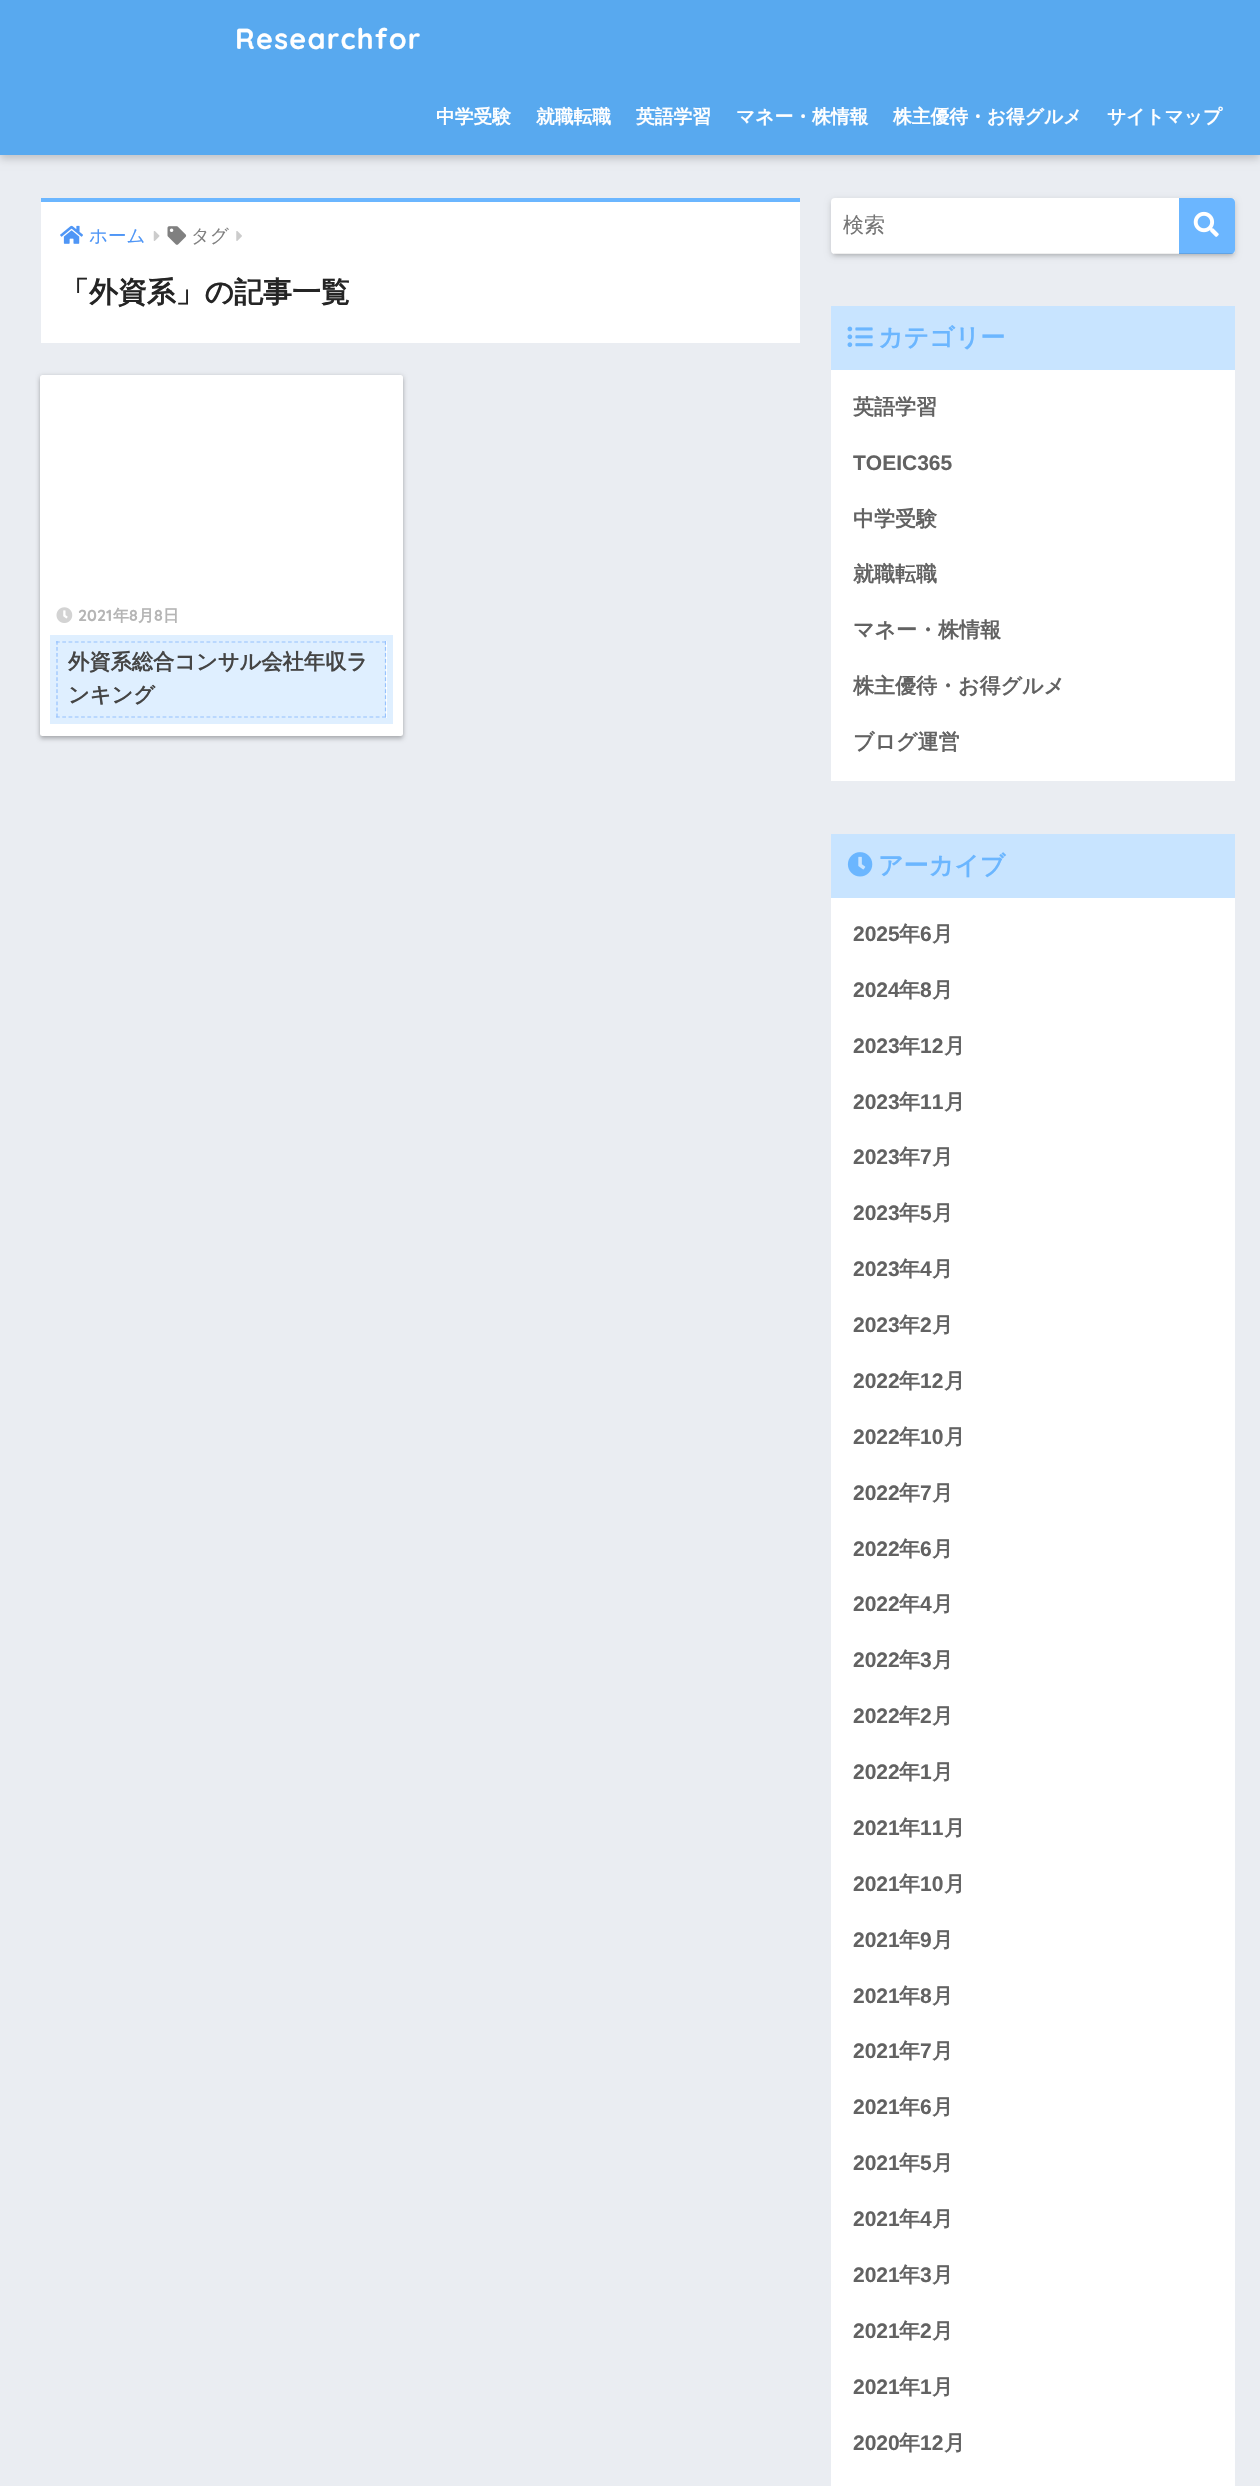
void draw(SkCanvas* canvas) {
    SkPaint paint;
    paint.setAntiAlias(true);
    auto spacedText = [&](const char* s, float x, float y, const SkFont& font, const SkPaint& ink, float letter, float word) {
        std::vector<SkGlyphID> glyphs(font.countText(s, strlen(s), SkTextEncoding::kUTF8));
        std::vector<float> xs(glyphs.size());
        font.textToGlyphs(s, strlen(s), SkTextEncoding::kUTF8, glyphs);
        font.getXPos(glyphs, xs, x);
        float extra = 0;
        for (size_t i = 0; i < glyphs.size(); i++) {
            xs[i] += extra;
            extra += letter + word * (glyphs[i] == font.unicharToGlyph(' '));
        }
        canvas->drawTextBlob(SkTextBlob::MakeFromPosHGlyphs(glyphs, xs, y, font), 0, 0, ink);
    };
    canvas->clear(0xFFEAEDF2);
    paint.setColor(0x2E000000);
    paint.setMaskFilter(SkMaskFilter::MakeBlur(kNormal_SkBlurStyle, 4));
    canvas->drawRect(SkRect::MakeXYWH(0, 4, 1260, 155), paint);
    paint.setMaskFilter(nullptr);
    paint.setColor(0xFF58A9EF);
    canvas->drawRect(SkRect::MakeXYWH(0, 0, 1260, 155), paint);
    SkFont font1(fontMgr->matchFamilyStyle("Quicksand", SkFontStyle::Bold()), 28.75f);
    font1.setSubpixel(true);
    paint.setColor(0xFFFFFFFF);
    spacedText("Researchfor", 235, 49, font1, paint, 1.25f, 0);
    SkFont font2(fontMgr->matchFamilyStyle("WenQuanYi Zen Hei", SkFontStyle::Bold()), 18.75f);
    font2.setSubpixel(true);
    canvas->drawString("中学受験", 436, 123, font2, paint);
    canvas->drawString("就職転職", 536, 123, font2, paint);
    canvas->drawString("英語学習", 636, 123, font2, paint);
    canvas->drawString("マネー・株情報", 736, 123, font2, paint);
    canvas->drawString("株主優待・お得グルメ", 893, 123, font2, paint);
    canvas->drawString("サイトマップ", 1107, 123, font2, paint);
    canvas->drawRect(SkRect::MakeXYWH(41, 202, 759, 141), paint);
    paint.setColor(0xFF6BB6FF);
    canvas->drawRect(SkRect::MakeXYWH(41, 198, 759, 4), paint);
    canvas->drawImageRect(SkImages::DeferredFromEncodedData(SkData::MakeFromFileName("img1.png")), SkRect::MakeXYWH(60, 225, 23, 19), SkSamplingOptions());
    SkFont font3(fontMgr->matchFamilyStyle("WenQuanYi Zen Hei", SkFontStyle(500, SkFontStyle::kNormal_Width, SkFontStyle::kUpright_Slant)), 18.5f);
    font3.setSubpixel(true);
    paint.setColor(0xFF4F96F6);
    canvas->drawString("ホーム", 89, 242, font3, paint);
    canvas->drawImageRect(SkImages::DeferredFromEncodedData(SkData::MakeFromFileName("img2.png")), SkRect::MakeXYWH(153, 231, 7, 10), SkSamplingOptions());
    canvas->drawImageRect(SkImages::DeferredFromEncodedData(SkData::MakeFromFileName("img3.png")), SkRect::MakeXYWH(167, 226, 20, 19), SkSamplingOptions());
    paint.setColor(0xFF808080);
    canvas->drawString("タグ", 191, 242, font3, paint);
    canvas->drawImageRect(SkImages::DeferredFromEncodedData(SkData::MakeFromFileName("img4.png")), SkRect::MakeXYWH(236, 231, 6, 10), SkSamplingOptions());
    SkFont font4(fontMgr->matchFamilyStyle("WenQuanYi Zen Hei", SkFontStyle::Bold()), 28.9f);
    font4.setSubpixel(true);
    paint.setColor(0xFF252525);
    canvas->drawString("「外資系」の記事一覧", 60, 302, font4, paint);
    paint.setColor(0x38000000);
    paint.setMaskFilter(SkMaskFilter::MakeBlur(kNormal_SkBlurStyle, 2));
    canvas->drawRoundRect(SkRect::MakeXYWH(40, 378, 363, 361), 2.5f, 2.5f, paint);
    paint.setMaskFilter(nullptr);
    paint.setColor(0x1F000000);
    paint.setMaskFilter(SkMaskFilter::MakeBlur(kNormal_SkBlurStyle, 2));
    canvas->drawRoundRect(SkRect::MakeXYWH(40, 375, 363, 361), 2.5f, 2.5f, paint);
    paint.setMaskFilter(nullptr);
    paint.setColor(0xFFFFFFFF);
    canvas->drawRoundRect(SkRect::MakeXYWH(40, 375, 363, 361), 2.5f, 2.5f, paint);
    canvas->drawImageRect(SkImages::DeferredFromEncodedData(SkData::MakeFromFileName("img5.png")), SkRect::MakeXYWH(56, 607, 17, 16), SkSamplingOptions());
    SkFont font5(fontMgr->matchFamilyStyle("Quicksand", SkFontStyle::Bold()), 16);
    font5.setSubpixel(true);
    paint.setColor(0xFFB5B5B5);
    canvas->drawString("2021", 78, 621, font5, paint);
    SkFont font6(fontMgr->matchFamilyStyle("WenQuanYi Zen Hei", SkFontStyle::Bold()), 16);
    font6.setSubpixel(true);
    canvas->drawString("年", 113, 621, font6, paint);
    canvas->drawString("8", 129, 621, font5, paint);
    canvas->drawString("月", 138, 621, font6, paint);
    canvas->drawString("8", 154, 621, font5, paint);
    canvas->drawString("日", 163, 621, font6, paint);
    paint.setStyle(SkPaint::kStroke_Style);
    paint.setStrokeWidth(6);
    paint.setColor(0xFFDFEFFF);
    canvas->drawRect(SkRect::MakeXYWH(53, 638, 337, 83), paint);
    paint.setStyle(SkPaint::kFill_Style);
    canvas->drawRect(SkRect::MakeXYWH(56, 641, 330, 77), paint);
    paint.setStyle(SkPaint::kStroke_Style);
    paint.setStrokeWidth(1.2f);
    paint.setColor(0xFF96C2FE);
    paint.setPathEffect(SkDashPathEffect::Make({{3.75f, 2.52f}}, 0));
    canvas->drawPath(SkPathBuilder().moveTo(56, 642).lineTo(386, 642).detach(), paint);
    paint.setPathEffect(nullptr);
    paint.setPathEffect(SkDashPathEffect::Make({{3.75f, 2.29f}}, 0));
    canvas->drawPath(SkPathBuilder().moveTo(385.5f, 641).lineTo(385.5f, 717.5f).detach(), paint);
    paint.setPathEffect(nullptr);
    paint.setPathEffect(SkDashPathEffect::Make({{3.75f, 2.52f}}, 0));
    canvas->drawPath(SkPathBuilder().moveTo(56, 717).lineTo(386, 717).detach(), paint);
    paint.setPathEffect(nullptr);
    paint.setPathEffect(SkDashPathEffect::Make({{3.75f, 2.29f}}, 0));
    canvas->drawPath(SkPathBuilder().moveTo(57, 641).lineTo(57, 717.5f).detach(), paint);
    paint.setPathEffect(nullptr);
    SkFont font7(fontMgr->matchFamilyStyle("WenQuanYi Zen Hei", SkFontStyle::Bold()), 21.25f);
    font7.setSubpixel(true);
    paint.setStyle(SkPaint::kFill_Style);
    paint.setColor(0xFF454545);
    canvas->drawString("外資系総合コンサル会社年収ラ", 68, 669, font7, paint);
    canvas->drawString("ンキング", 68, 702, font7, paint);
    paint.setColor(0x26000000);
    paint.setMaskFilter(SkMaskFilter::MakeBlur(kNormal_SkBlurStyle, 2));
    canvas->drawRoundRect(SkRect::MakeXYWH(834, 204, 399, 51), 1, 1, paint);
    paint.setMaskFilter(nullptr);
    paint.setMaskFilter(SkMaskFilter::MakeBlur(kNormal_SkBlurStyle, 3));
    canvas->drawRoundRect(SkRect::MakeXYWH(831, 200, 404, 56), 4, 4, paint);
    paint.setMaskFilter(nullptr);
    paint.setColor(0xFFFFFFFF);
    canvas->drawRoundRect(SkRect::MakeXYWH(831, 198, 404, 56), 4, 4, paint);
    paint.setColor(0xFFEFEFEF);
    canvas->drawRect(SkRect::MakeXYWH(834, 253, 400, 1), paint);
    SkFont font8(fontMgr->matchFamilyStyle("WenQuanYi Zen Hei", SkFontStyle(500, SkFontStyle::kNormal_Width, SkFontStyle::kUpright_Slant)), 21);
    font8.setSubpixel(true);
    paint.setColor(0xFF757575);
    canvas->drawString("検索", 843, 232, font8, paint);
    paint.setColor(0xFF6BB6FF);
    canvas->drawPath(SkPathBuilder().moveTo(1179, 198).lineTo(1231, 198).cubicTo(1233, 198, 1235, 200, 1235, 202).lineTo(1235, 250).cubicTo(1235, 252, 1233, 254, 1231, 254).lineTo(1179, 254).close().detach(), paint);
    paint.setColor(0x1A000000);
    canvas->drawRect(SkRect::MakeXYWH(1179, 253, 55, 1), paint);
    canvas->drawImageRect(SkImages::DeferredFromEncodedData(SkData::MakeFromFileName("img6.png")), SkRect::MakeXYWH(1193, 211, 26, 26), SkSamplingOptions());
    paint.setColor(0xFFFFFFFF);
    canvas->drawRect(SkRect::MakeXYWH(831, 370, 404, 411), paint);
    paint.setColor(0xFFC8E4FF);
    canvas->drawRect(SkRect::MakeXYWH(831, 306, 404, 64), paint);
    canvas->drawImageRect(SkImages::DeferredFromEncodedData(SkData::MakeFromFileName("img7.png")), SkRect::MakeXYWH(847, 326, 26, 21), SkSamplingOptions());
    SkFont font9(fontMgr->matchFamilyStyle("WenQuanYi Zen Hei", SkFontStyle::Bold()), 25);
    font9.setSubpixel(true);
    paint.setColor(0xFF6BB6FF);
    canvas->drawString("カテゴリー", 878, 346, font9, paint);
    SkFont font10(fontMgr->matchFamilyStyle("WenQuanYi Zen Hei", SkFontStyle::Bold()), 21);
    font10.setSubpixel(true);
    paint.setColor(0xFF626262);
    canvas->drawString("英語学習", 853, 414, font10, paint);
    SkFont font11(fontMgr->matchFamilyStyle("Liberation Sans", SkFontStyle::Bold()), 21);
    font11.setSubpixel(true);
    canvas->drawString("TOEIC365", 853, 470, font11, paint);
    canvas->drawString("中学受験", 853, 526, font10, paint);
    canvas->drawString("就職転職", 853, 581, font10, paint);
    canvas->drawString("マネー・株情報", 853, 637, font10, paint);
    canvas->drawString("株主優待・お得グルメ", 853, 693, font10, paint);
    canvas->drawString("ブログ運営", 853, 749, font10, paint);
    paint.setColor(0xFFFFFFFF);
    canvas->drawRect(SkRect::MakeXYWH(831, 898, 404, 1588), paint);
    paint.setColor(0xFFC8E4FF);
    canvas->drawRect(SkRect::MakeXYWH(831, 834, 404, 64), paint);
    canvas->drawImageRect(SkImages::DeferredFromEncodedData(SkData::MakeFromFileName("img8.png")), SkRect::MakeXYWH(847, 852, 26, 25), SkSamplingOptions());
    paint.setColor(0xFF6BB6FF);
    canvas->drawString("アーカイブ", 878, 874, font9, paint);
    paint.setColor(0xFF626262);
    canvas->drawString("2025", 853, 941, font11, paint);
    canvas->drawString("年", 899, 941, font10, paint);
    canvas->drawString("6", 920, 941, font11, paint);
    canvas->drawString("月", 932, 941, font10, paint);
    canvas->drawString("2024", 853, 997, font11, paint);
    canvas->drawString("年", 899, 997, font10, paint);
    canvas->drawString("8", 920, 997, font11, paint);
    canvas->drawString("月", 932, 997, font10, paint);
    canvas->drawString("2023", 853, 1053, font11, paint);
    canvas->drawString("年", 899, 1053, font10, paint);
    canvas->drawString("12", 920, 1053, font11, paint);
    canvas->drawString("月", 944, 1053, font10, paint);
    canvas->drawString("2023", 853, 1109, font11, paint);
    canvas->drawString("年", 899, 1109, font10, paint);
    canvas->drawString("11", 920, 1109, font11, paint);
    canvas->drawString("月", 944, 1109, font10, paint);
    canvas->drawString("2023", 853, 1164, font11, paint);
    canvas->drawString("年", 899, 1164, font10, paint);
    canvas->drawString("7", 920, 1164, font11, paint);
    canvas->drawString("月", 932, 1164, font10, paint);
    canvas->drawString("2023", 853, 1220, font11, paint);
    canvas->drawString("年", 899, 1220, font10, paint);
    canvas->drawString("5", 920, 1220, font11, paint);
    canvas->drawString("月", 932, 1220, font10, paint);
    canvas->drawString("2023", 853, 1276, font11, paint);
    canvas->drawString("年", 899, 1276, font10, paint);
    canvas->drawString("4", 920, 1276, font11, paint);
    canvas->drawString("月", 932, 1276, font10, paint);
    canvas->drawString("2023", 853, 1332, font11, paint);
    canvas->drawString("年", 899, 1332, font10, paint);
    canvas->drawString("2", 920, 1332, font11, paint);
    canvas->drawString("月", 932, 1332, font10, paint);
    canvas->drawString("2022", 853, 1388, font11, paint);
    canvas->drawString("年", 899, 1388, font10, paint);
    canvas->drawString("12", 920, 1388, font11, paint);
    canvas->drawString("月", 944, 1388, font10, paint);
    canvas->drawString("2022", 853, 1444, font11, paint);
    canvas->drawString("年", 899, 1444, font10, paint);
    canvas->drawString("10", 920, 1444, font11, paint);
    canvas->drawString("月", 944, 1444, font10, paint);
    canvas->drawString("2022", 853, 1500, font11, paint);
    canvas->drawString("年", 899, 1500, font10, paint);
    canvas->drawString("7", 920, 1500, font11, paint);
    canvas->drawString("月", 932, 1500, font10, paint);
    canvas->drawString("2022", 853, 1556, font11, paint);
    canvas->drawString("年", 899, 1556, font10, paint);
    canvas->drawString("6", 920, 1556, font11, paint);
    canvas->drawString("月", 932, 1556, font10, paint);
    canvas->drawString("2022", 853, 1611, font11, paint);
    canvas->drawString("年", 899, 1611, font10, paint);
    canvas->drawString("4", 920, 1611, font11, paint);
    canvas->drawString("月", 932, 1611, font10, paint);
    canvas->drawString("2022", 853, 1667, font11, paint);
    canvas->drawString("年", 899, 1667, font10, paint);
    canvas->drawString("3", 920, 1667, font11, paint);
    canvas->drawString("月", 932, 1667, font10, paint);
    canvas->drawString("2022", 853, 1723, font11, paint);
    canvas->drawString("年", 899, 1723, font10, paint);
    canvas->drawString("2", 920, 1723, font11, paint);
    canvas->drawString("月", 932, 1723, font10, paint);
    canvas->drawString("2022", 853, 1779, font11, paint);
    canvas->drawString("年", 899, 1779, font10, paint);
    canvas->drawString("1", 920, 1779, font11, paint);
    canvas->drawString("月", 932, 1779, font10, paint);
    canvas->drawString("2021", 853, 1835, font11, paint);
    canvas->drawString("年", 899, 1835, font10, paint);
    canvas->drawString("11", 920, 1835, font11, paint);
    canvas->drawString("月", 944, 1835, font10, paint);
    canvas->drawString("2021", 853, 1891, font11, paint);
    canvas->drawString("年", 899, 1891, font10, paint);
    canvas->drawString("10", 920, 1891, font11, paint);
    canvas->drawString("月", 944, 1891, font10, paint);
    canvas->drawString("2021", 853, 1947, font11, paint);
    canvas->drawString("年", 899, 1947, font10, paint);
    canvas->drawString("9", 920, 1947, font11, paint);
    canvas->drawString("月", 932, 1947, font10, paint);
    canvas->drawString("2021", 853, 2003, font11, paint);
    canvas->drawString("年", 899, 2003, font10, paint);
    canvas->drawString("8", 920, 2003, font11, paint);
    canvas->drawString("月", 932, 2003, font10, paint);
    canvas->drawString("2021", 853, 2058, font11, paint);
    canvas->drawString("年", 899, 2058, font10, paint);
    canvas->drawString("7", 920, 2058, font11, paint);
    canvas->drawString("月", 932, 2058, font10, paint);
    canvas->drawString("2021", 853, 2114, font11, paint);
    canvas->drawString("年", 899, 2114, font10, paint);
    canvas->drawString("6", 920, 2114, font11, paint);
    canvas->drawString("月", 932, 2114, font10, paint);
    canvas->drawString("2021", 853, 2170, font11, paint);
    canvas->drawString("年", 899, 2170, font10, paint);
    canvas->drawString("5", 920, 2170, font11, paint);
    canvas->drawString("月", 932, 2170, font10, paint);
    canvas->drawString("2021", 853, 2226, font11, paint);
    canvas->drawString("年", 899, 2226, font10, paint);
    canvas->drawString("4", 920, 2226, font11, paint);
    canvas->drawString("月", 932, 2226, font10, paint);
    canvas->drawString("2021", 853, 2282, font11, paint);
    canvas->drawString("年", 899, 2282, font10, paint);
    canvas->drawString("3", 920, 2282, font11, paint);
    canvas->drawString("月", 932, 2282, font10, paint);
    canvas->drawString("2021", 853, 2338, font11, paint);
    canvas->drawString("年", 899, 2338, font10, paint);
    canvas->drawString("2", 920, 2338, font11, paint);
    canvas->drawString("月", 932, 2338, font10, paint);
    canvas->drawString("2021", 853, 2394, font11, paint);
    canvas->drawString("年", 899, 2394, font10, paint);
    canvas->drawString("1", 920, 2394, font11, paint);
    canvas->drawString("月", 932, 2394, font10, paint);
    canvas->drawString("2020", 853, 2450, font11, paint);
    canvas->drawString("年", 899, 2450, font10, paint);
    canvas->drawString("12", 920, 2450, font11, paint);
    canvas->drawString("月", 944, 2450, font10, paint);
}
